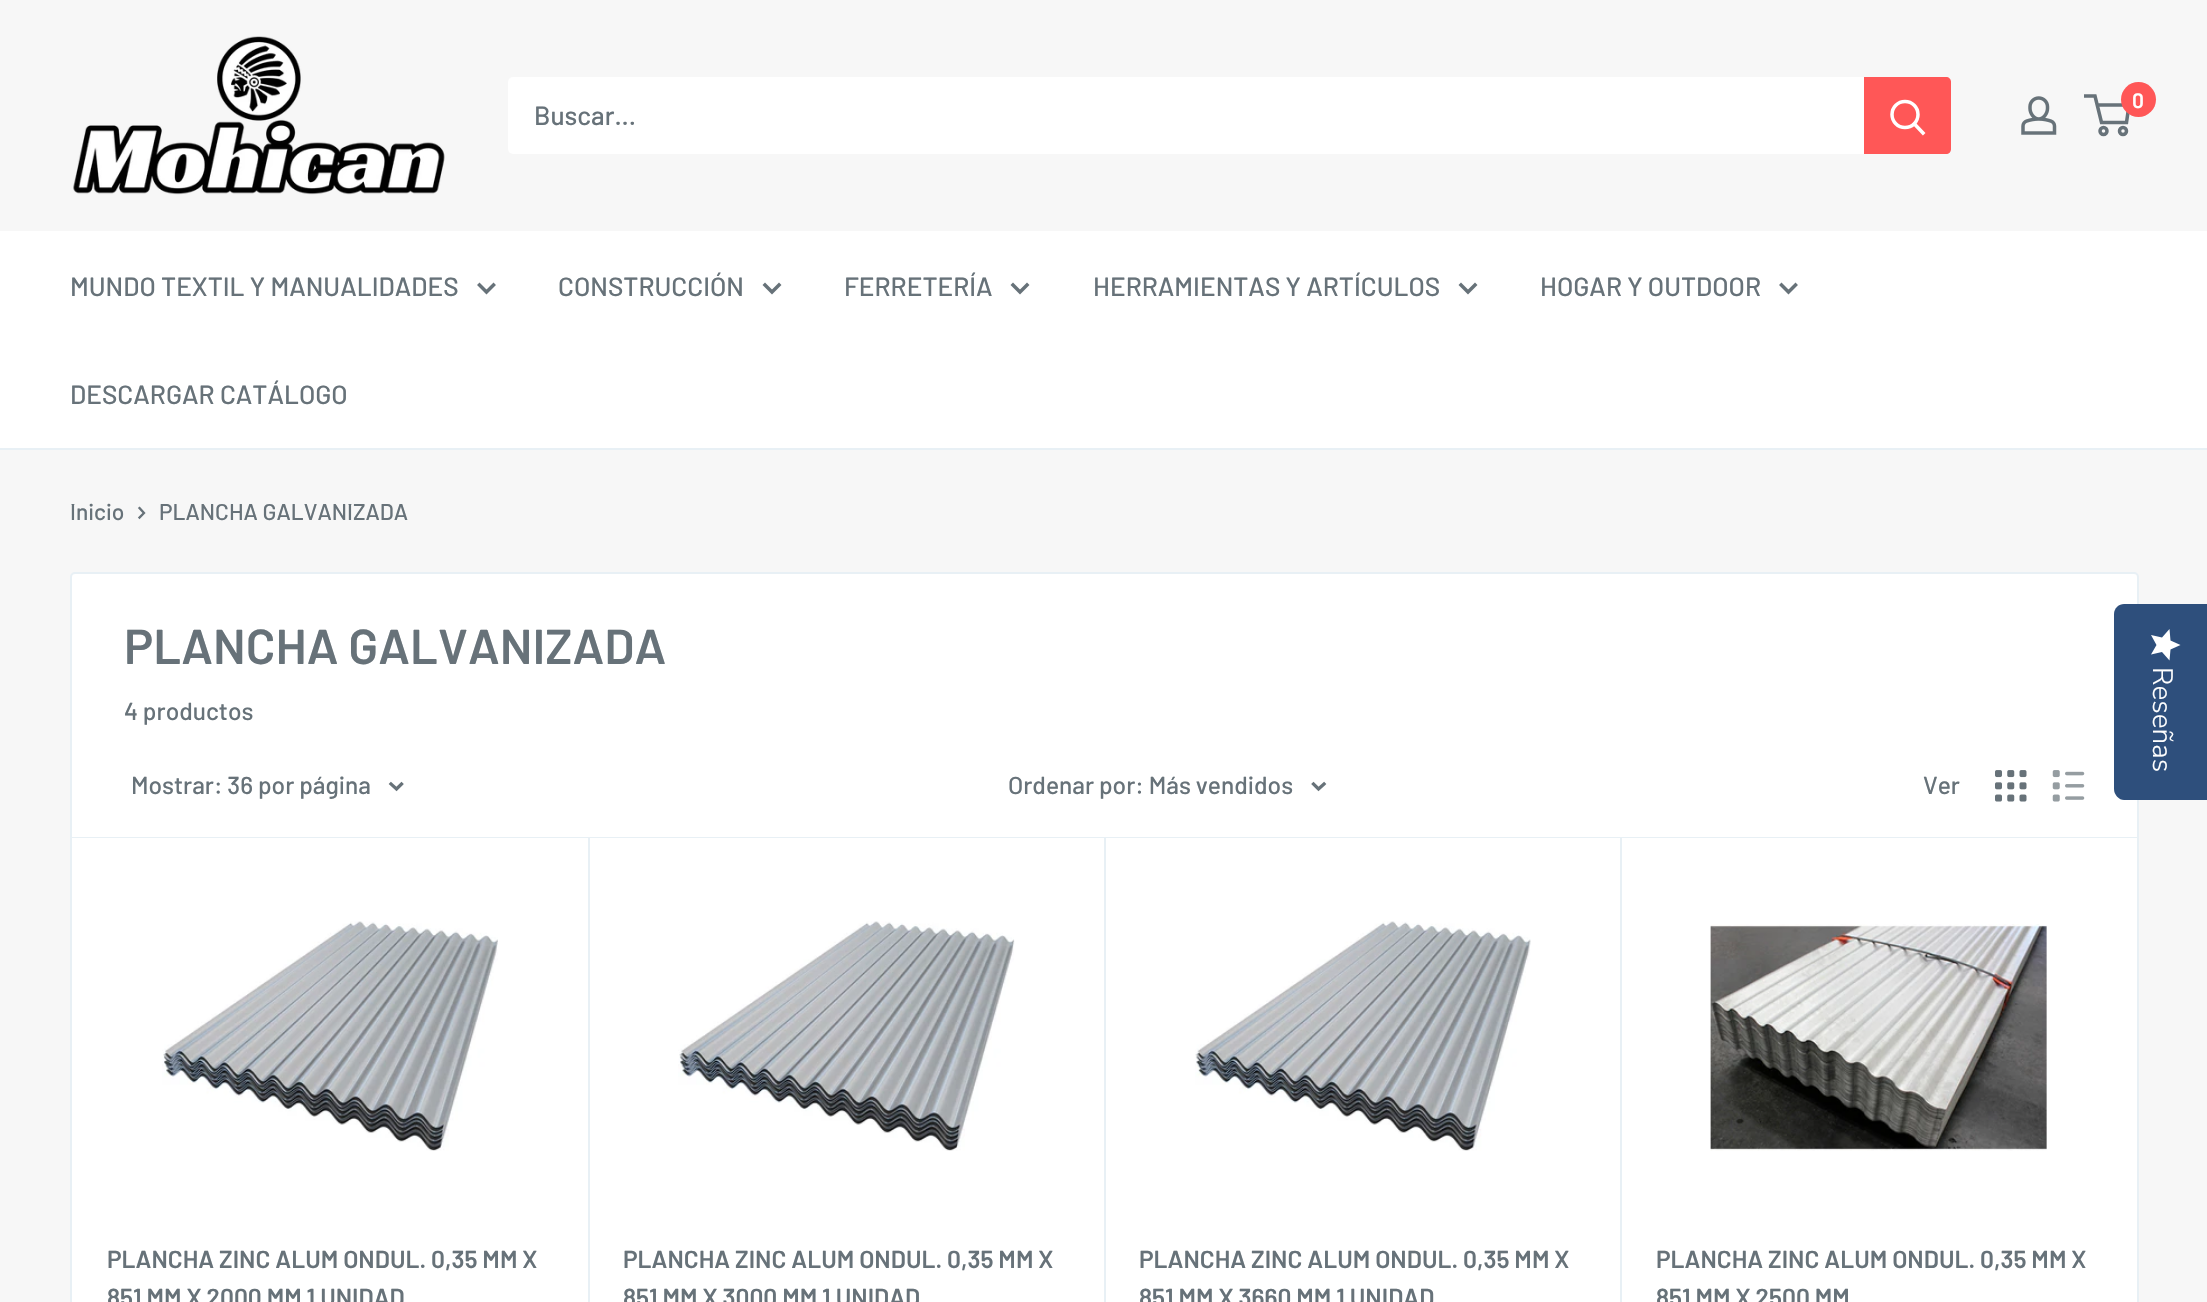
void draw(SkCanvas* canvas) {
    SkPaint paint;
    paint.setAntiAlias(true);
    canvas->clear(0xFFF7F7F7);
    canvas->drawImageRect(SkImages::DeferredFromEncodedData(SkData::MakeFromFileName("img1.png")), SkRect::MakeXYWH(73, 36, 372, 159), SkSamplingOptions());
    canvas->drawImageRect(SkImages::DeferredFromEncodedData(SkData::MakeFromFileName("img2.png")), SkRect::MakeXYWH(2021, 96, 36, 39), SkSamplingOptions());
    paint.setStyle(SkPaint::kStroke_Style);
    paint.setStrokeWidth(3.5f);
    paint.setColor(0xFF677279);
    canvas->drawCircle(2103.5f, 131, 3.5f, paint);
    canvas->drawCircle(2123, 131, 3.5f, paint);
    canvas->drawPath(SkPathBuilder().moveTo(2097, 105).lineTo(2129, 105).lineTo(2126.5f, 122.5f).lineTo(2101.5f, 122.5f).lineTo(2095, 96).lineTo(2084, 96).detach(), paint);
    paint.setStyle(SkPaint::kFill_Style);
    paint.setColor(0xFFFF5757);
    canvas->drawCircle(2138.5f, 99.5f, 17.5f, paint);
    SkFont font1(fontMgr->matchFamilyStyle("Barlow", SkFontStyle(600, SkFontStyle::kNormal_Width, SkFontStyle::kUpright_Slant)), 21);
    font1.setSubpixel(true);
    paint.setColor(0xFFFFFFFF);
    canvas->drawString("0", 2132, 108, font1, paint);
    canvas->drawRoundRect(SkRect::MakeXYWH(508, 77, 1443, 77), 5, 5, paint);
    SkFont font2(fontMgr->matchFamilyStyle("Barlow", SkFontStyle(500, SkFontStyle::kNormal_Width, SkFontStyle::kUpright_Slant)), 26.25f);
    font2.setSubpixel(true);
    paint.setColor(0xFF677279);
    canvas->drawString("Buscar...", 534, 125, font2, paint);
    paint.setColor(0xFFFF5757);
    canvas->drawPath(SkPathBuilder().moveTo(1864, 77).lineTo(1946, 77).cubicTo(1949, 77, 1951, 79, 1951, 82).lineTo(1951, 149).cubicTo(1951, 152, 1949, 154, 1946, 154).lineTo(1864, 154).close().detach(), paint);
    paint.setStyle(SkPaint::kStroke_Style);
    paint.setStrokeCap(SkPaint::kSquare_Cap);
    paint.setColor(0xFFFFFFFF);
    canvas->drawPath(SkPathBuilder().moveTo(1923, 133).lineTo(1914.5f, 124).detach(), paint);
    paint.setStrokeCap(SkPaint::kButt_Cap);
    canvas->drawCircle(1905, 114.5f, 13, paint);
    paint.setStyle(SkPaint::kFill_Style);
    canvas->drawRect(SkRect::MakeXYWH(0, 231, 2207, 217), paint);
    paint.setColor(0xFFE8F0F5);
    canvas->drawRect(SkRect::MakeXYWH(0, 448, 2207, 2), paint);
    paint.setColor(0xFF677279);
    canvas->drawString("MUNDO TEXTIL Y MANUALIDADES", 70, 296, font2, paint);
    paint.setStyle(SkPaint::kStroke_Style);
    paint.setStrokeCap(SkPaint::kSquare_Cap);
    canvas->drawPath(SkPathBuilder().moveTo(493.5f, 285).lineTo(486.5f, 292).lineTo(479.5f, 285).detach(), paint);
    paint.setStyle(SkPaint::kFill_Style);
    canvas->drawString("CONSTRUCCIÓN", 558, 296, font2, paint);
    paint.setStyle(SkPaint::kStroke_Style);
    canvas->drawPath(SkPathBuilder().moveTo(779, 285).lineTo(772, 292).lineTo(765, 285).detach(), paint);
    paint.setStyle(SkPaint::kFill_Style);
    canvas->drawString("FERRETERÍA", 844, 296, font2, paint);
    paint.setStyle(SkPaint::kStroke_Style);
    canvas->drawPath(SkPathBuilder().moveTo(1027, 285).lineTo(1020, 292).lineTo(1013, 285).detach(), paint);
    paint.setStyle(SkPaint::kFill_Style);
    canvas->drawString("HERRAMIENTAS Y ARTÍCULOS", 1093, 296, font2, paint);
    paint.setStyle(SkPaint::kStroke_Style);
    canvas->drawPath(SkPathBuilder().moveTo(1475, 285).lineTo(1468, 292).lineTo(1461, 285).detach(), paint);
    paint.setStyle(SkPaint::kFill_Style);
    canvas->drawString("HOGAR Y OUTDOOR", 1540, 296, font2, paint);
    paint.setStyle(SkPaint::kStroke_Style);
    canvas->drawPath(SkPathBuilder().moveTo(1795.5f, 285).lineTo(1788.5f, 292).lineTo(1781.5f, 285).detach(), paint);
    paint.setStyle(SkPaint::kFill_Style);
    canvas->drawString("DESCARGAR CATÁLOGO", 70, 404, font2, paint);
    SkFont font3(fontMgr->matchFamilyStyle("Barlow", SkFontStyle(500, SkFontStyle::kNormal_Width, SkFontStyle::kUpright_Slant)), 22.75f);
    font3.setSubpixel(true);
    canvas->drawString("Inicio", 70, 520, font3, paint);
    paint.setStyle(SkPaint::kStroke_Style);
    paint.setStrokeWidth(2.3f);
    canvas->drawPath(SkPathBuilder().moveTo(139.5f, 508).lineTo(144, 513).lineTo(139.5f, 517.5f).detach(), paint);
    paint.setStyle(SkPaint::kFill_Style);
    canvas->drawString("PLANCHA GALVANIZADA", 159, 520, font3, paint);
    paint.setColor(0xFFFFFFFF);
    canvas->drawRoundRect(SkRect::MakeXYWH(71, 573, 2067, 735), 4, 4, paint);
    paint.setStyle(SkPaint::kStroke_Style);
    paint.setStrokeWidth(2);
    paint.setStrokeCap(SkPaint::kButt_Cap);
    paint.setColor(0xFFE8F0F5);
    canvas->drawRoundRect(SkRect::MakeXYWH(71, 573, 2067, 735), 4, 4, paint);
    SkFont font4(fontMgr->matchFamilyStyle("Barlow", SkFontStyle(600, SkFontStyle::kNormal_Width, SkFontStyle::kUpright_Slant)), 49);
    font4.setSubpixel(true);
    paint.setStyle(SkPaint::kFill_Style);
    paint.setColor(0xFF677279);
    canvas->drawString("PLANCHA GALVANIZADA", 124, 664, font4, paint);
    SkFont font5(fontMgr->matchFamilyStyle("Barlow", SkFontStyle(500, SkFontStyle::kNormal_Width, SkFontStyle::kUpright_Slant)), 24.5f);
    font5.setSubpixel(true);
    canvas->drawString("4 productos", 124, 720, font5, paint);
    paint.setColor(0xFFE8F0F5);
    canvas->drawPath(SkPathBuilder().moveTo(75, 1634).lineTo(77, 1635).lineTo(590, 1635).lineTo(590, 837).lineTo(588, 837).lineTo(588, 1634).close().detach(), paint);
    canvas->drawPath(SkPathBuilder().moveTo(590, 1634).lineTo(590, 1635).lineTo(1106, 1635).lineTo(1106, 837).lineTo(1104, 837).lineTo(1104, 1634).close().detach(), paint);
    canvas->drawPath(SkPathBuilder().moveTo(1106, 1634).lineTo(1106, 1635).lineTo(1622, 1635).lineTo(1622, 837).lineTo(1620, 837).lineTo(1620, 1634).close().detach(), paint);
    canvas->drawPath(SkPathBuilder().moveTo(72, 836).lineTo(72, 838).lineTo(2137, 838).lineTo(2137, 737).lineTo(2137, 836).close().detach(), paint);
    paint.setColor(0xFFFFFFFF);
    canvas->drawRect(SkRect::MakeXYWH(72, 836, 2065, 1), paint);
    paint.setColor(0xFF677279);
    canvas->drawString("Mostrar: 36 por página", 131, 794, font5, paint);
    paint.setStyle(SkPaint::kStroke_Style);
    paint.setStrokeWidth(3.3f);
    paint.setStrokeCap(SkPaint::kSquare_Cap);
    canvas->drawPath(SkPathBuilder().moveTo(401.5f, 784).lineTo(396.5f, 789).lineTo(391, 784).detach(), paint);
    paint.setStyle(SkPaint::kFill_Style);
    canvas->drawString("Ordenar por: Más vendidos", 1008, 794, font5, paint);
    paint.setStyle(SkPaint::kStroke_Style);
    canvas->drawPath(SkPathBuilder().moveTo(1324, 784).lineTo(1318.5f, 789).lineTo(1313.5f, 784).detach(), paint);
    paint.setStyle(SkPaint::kFill_Style);
    canvas->drawString("Ver", 1923, 794, font5, paint);
    canvas->drawImageRect(SkImages::DeferredFromEncodedData(SkData::MakeFromFileName("img3.png")), SkRect::MakeXYWH(1995, 770, 32, 32), SkSamplingOptions());
    canvas->drawImageRect(SkImages::DeferredFromEncodedData(SkData::MakeFromFileName("img4.png")), SkRect::MakeXYWH(2052, 770, 33, 32), SkSamplingOptions());
    canvas->drawImageRect(SkImages::DeferredFromEncodedData(SkData::MakeFromFileName("img5.png")), SkRect::MakeXYWH(162, 921, 336, 230), SkSamplingOptions());
    SkFont font6(fontMgr->matchFamilyStyle("Barlow", SkFontStyle(600, SkFontStyle::kNormal_Width, SkFontStyle::kUpright_Slant)), 24.5f);
    font6.setSubpixel(true);
    canvas->drawString("PLANCHA ZINC ALUM ONDUL. 0,35 MM X", 107, 1268, font6, paint);
    canvas->drawString("851 MM X 2000 MM 1 UNIDAD", 107, 1306, font6, paint);
    canvas->drawImageRect(SkImages::DeferredFromEncodedData(SkData::MakeFromFileName("img6.png")), SkRect::MakeXYWH(678, 921, 337, 230), SkSamplingOptions());
    canvas->drawString("PLANCHA ZINC ALUM ONDUL. 0,35 MM X", 623, 1268, font6, paint);
    canvas->drawString("851 MM X 3000 MM 1 UNIDAD", 623, 1306, font6, paint);
    canvas->drawImageRect(SkImages::DeferredFromEncodedData(SkData::MakeFromFileName("img7.png")), SkRect::MakeXYWH(1195, 921, 336, 230), SkSamplingOptions());
    canvas->drawString("PLANCHA ZINC ALUM ONDUL. 0,35 MM X", 1139, 1268, font6, paint);
    canvas->drawString("851 MM X 3660 MM 1 UNIDAD", 1139, 1306, font6, paint);
    canvas->drawImageRect(SkImages::DeferredFromEncodedData(SkData::MakeFromFileName("img8.png")), SkRect::MakeXYWH(1710, 924, 337, 227), SkSamplingOptions());
    canvas->drawString("PLANCHA ZINC ALUM ONDUL. 0,35 MM X", 1656, 1268, font6, paint);
    canvas->drawString("851 MM X 2500 MM", 1656, 1306, font6, paint);
    paint.setColor(0xFF2E4F7C);
    canvas->drawPath(SkPathBuilder().moveTo(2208, 604).lineTo(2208, 800).lineTo(2124, 800).cubicTo(2119, 800, 2114, 795, 2114, 789).lineTo(2114, 614).cubicTo(2114, 608, 2119, 604, 2124, 604).close().detach(), paint);
    {
        const SkColor colors[] = {0xFFFFFFFF, 0xFFEAEAEA};
        const float stops[] = {1, 1};
        const SkPoint ends[] = {{2181, 629}, {2181, 661}};
        paint.setShader(SkGradientShader::MakeLinear(ends, colors, stops, 2, SkTileMode::kClamp));
        paint.setAlpha(255);
    }
    canvas->drawPath(SkPathBuilder().moveTo(2156.5f, 645).lineTo(2151, 654.5f).lineTo(2162, 652).lineTo(2169.5f, 660.5f).lineTo(2170.5f, 649.5f).lineTo(2180.5f, 645).lineTo(2170.5f, 640.5f).lineTo(2169.5f, 629).lineTo(2162, 637.5f).lineTo(2151, 635).close().detach(), paint);
    SkFont font7(fontMgr->matchFamilyStyle("Nunito Sans", SkFontStyle(300, SkFontStyle::kNormal_Width, SkFontStyle::kUpright_Slant)), 28);
    font7.setSubpixel(true);
    paint.setShader(nullptr);
    paint.setColor(0xFFFFFFFF);
    canvas->save();
    canvas->rotate(90, 2153, 667);
    canvas->drawString("Reseñas", 2153, 667, font7, paint);
    canvas->restore();
}
